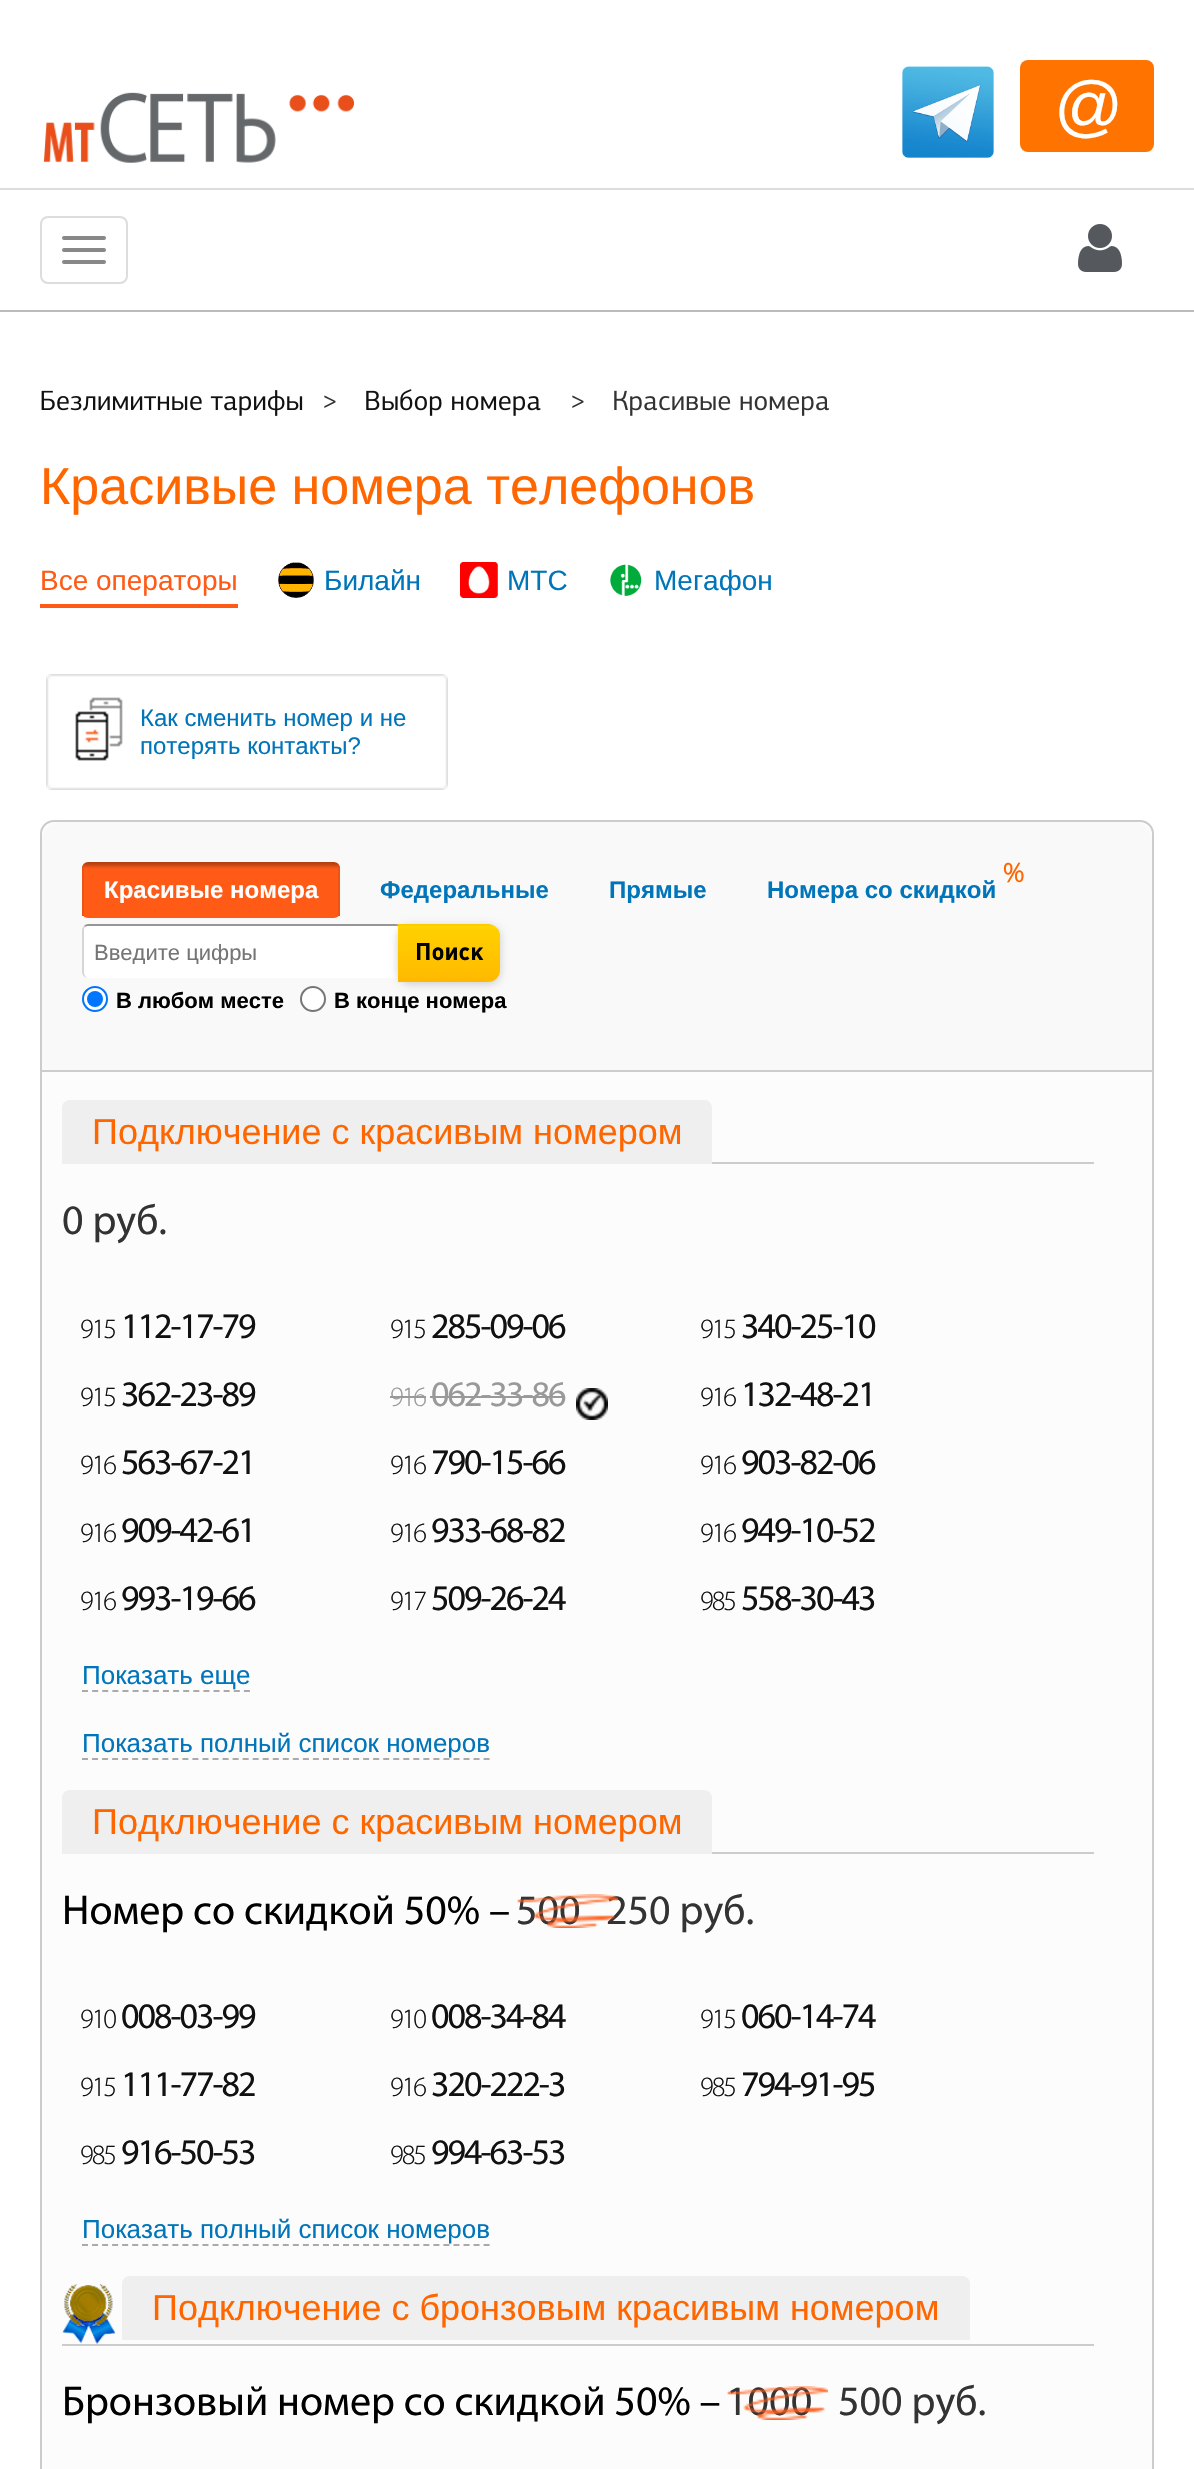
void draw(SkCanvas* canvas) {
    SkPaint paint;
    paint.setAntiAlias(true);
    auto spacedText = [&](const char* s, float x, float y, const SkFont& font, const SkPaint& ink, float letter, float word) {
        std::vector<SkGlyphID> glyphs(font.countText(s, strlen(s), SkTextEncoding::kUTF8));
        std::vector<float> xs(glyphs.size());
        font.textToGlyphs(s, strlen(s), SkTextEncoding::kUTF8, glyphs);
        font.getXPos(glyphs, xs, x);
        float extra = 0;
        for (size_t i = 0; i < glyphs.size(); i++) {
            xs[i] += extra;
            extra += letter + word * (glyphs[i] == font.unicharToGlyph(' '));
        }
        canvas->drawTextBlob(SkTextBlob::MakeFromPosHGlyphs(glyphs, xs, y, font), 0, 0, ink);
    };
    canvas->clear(0xFFFFFFFF);
    canvas->drawImageRect(SkImages::DeferredFromEncodedData(SkData::MakeFromFileName("img1.png")), SkRect::MakeXYWH(44, 92, 310, 71), SkSamplingOptions());
    canvas->drawImageRect(SkImages::DeferredFromEncodedData(SkData::MakeFromFileName("img2.png")), SkRect::MakeXYWH(902, 66, 92, 92), SkSamplingOptions());
    paint.setColor(0xFFFF7400);
    canvas->drawRoundRect(SkRect::MakeXYWH(1020, 60, 134, 92), 8, 8, paint);
    SkFont font1(fontMgr->matchFamilyStyle("Liberation Sans", SkFontStyle::Italic()), 68);
    font1.setSubpixel(true);
    paint.setColor(0xFFFFFFFF);
    canvas->drawString("@", 1053, 129, font1, paint);
    paint.setColor(0xFFDDDDDD);
    canvas->drawRect(SkRect::MakeXYWH(0, 188, 1194, 2), paint);
    paint.setColor(0xFFBBBBBB);
    canvas->drawRect(SkRect::MakeXYWH(0, 310, 1194, 2), paint);
    paint.setStyle(SkPaint::kStroke_Style);
    paint.setStrokeWidth(2);
    paint.setColor(0xFFDDDDDD);
    canvas->drawRoundRect(SkRect::MakeXYWH(41, 217, 86, 66), 7, 7, paint);
    paint.setStyle(SkPaint::kFill_Style);
    paint.setColor(0xFF888888);
    canvas->drawRoundRect(SkRect::MakeXYWH(62, 236, 44, 4), 2, 2, paint);
    canvas->drawRoundRect(SkRect::MakeXYWH(62, 248, 44, 4), 2, 2, paint);
    canvas->drawRoundRect(SkRect::MakeXYWH(62, 260, 44, 4), 2, 2, paint);
    canvas->drawImageRect(SkImages::DeferredFromEncodedData(SkData::MakeFromFileName("img3.png")), SkRect::MakeXYWH(1078, 224, 44, 48), SkSamplingOptions());
    canvas->drawImageRect(SkImages::DeferredFromEncodedData(SkData::MakeFromFileName("img4.png")), SkRect::MakeXYWH(41, 390, 262, 26), SkSamplingOptions());
    canvas->drawImageRect(SkImages::DeferredFromEncodedData(SkData::MakeFromFileName("img5.png")), SkRect::MakeXYWH(324, 395, 12, 13), SkSamplingOptions());
    canvas->drawImageRect(SkImages::DeferredFromEncodedData(SkData::MakeFromFileName("img6.png")), SkRect::MakeXYWH(366, 389, 175, 27), SkSamplingOptions());
    canvas->drawImageRect(SkImages::DeferredFromEncodedData(SkData::MakeFromFileName("img5.png")), SkRect::MakeXYWH(572, 395, 12, 13), SkSamplingOptions());
    canvas->drawImageRect(SkImages::DeferredFromEncodedData(SkData::MakeFromFileName("img7.png")), SkRect::MakeXYWH(614, 390, 215, 26), SkSamplingOptions());
    SkFont font2(fontMgr->matchFamilyStyle("Liberation Sans", SkFontStyle::Normal()), 52);
    font2.setSubpixel(true);
    paint.setColor(0xFFFF6600);
    canvas->drawString("Красивые номера телефонов", 40, 504, font2, paint);
    paint.setColor(0xFFFF5A16);
    canvas->drawRect(SkRect::MakeXYWH(40, 604, 198, 4), paint);
    SkFont font3(fontMgr->matchFamilyStyle("Liberation Sans", SkFontStyle::Normal()), 28);
    font3.setSubpixel(true);
    canvas->drawString("Все операторы", 40, 590, font3, paint);
    canvas->drawImageRect(SkImages::DeferredFromEncodedData(SkData::MakeFromFileName("img8.png")), SkRect::MakeXYWH(278, 562, 36, 36), SkSamplingOptions());
    paint.setColor(0xFF0075BA);
    canvas->drawString("Билайн", 324, 590, font3, paint);
    canvas->drawImageRect(SkImages::DeferredFromEncodedData(SkData::MakeFromFileName("img9.png")), SkRect::MakeXYWH(460, 562, 38, 36), SkSamplingOptions());
    canvas->drawString("МТС", 507, 590, font3, paint);
    canvas->drawImageRect(SkImages::DeferredFromEncodedData(SkData::MakeFromFileName("img10.png")), SkRect::MakeXYWH(610, 564, 32, 32), SkSamplingOptions());
    canvas->drawString("Мегафон", 654, 590, font3, paint);
    canvas->drawImageRect(SkImages::DeferredFromEncodedData(SkData::MakeFromFileName("img11.png")), SkRect::MakeXYWH(46, 674, 402, 116), SkSamplingOptions());
    SkFont font4(fontMgr->matchFamilyStyle("Liberation Sans", SkFontStyle::Normal()), 24);
    font4.setSubpixel(true);
    canvas->drawString("Как сменить номер и не", 140, 726, font4, paint);
    canvas->drawString("потерять контакты?", 140, 754, font4, paint);
    paint.setColor(0xFFFCFCFC);
    canvas->drawRoundRect(SkRect::MakeXYWH(41, 821, 1112, 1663), 13, 13, paint);
    paint.setStyle(SkPaint::kStroke_Style);
    paint.setColor(0xFFCCCCCC);
    canvas->drawRoundRect(SkRect::MakeXYWH(41, 821, 1112, 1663), 13, 13, paint);
    paint.setStyle(SkPaint::kFill_Style);
    paint.setColor(0xFFF9F9F9);
    canvas->drawPath(SkPathBuilder().moveTo(62, 822).lineTo(1132, 822).cubicTo(1143, 822, 1152, 831, 1152, 842).lineTo(1152, 1072).lineTo(42, 1072).lineTo(42, 842).cubicTo(42, 831, 51, 822, 62, 822).close().detach(), paint);
    paint.setColor(0xFFCCCCCC);
    canvas->drawRect(SkRect::MakeXYWH(42, 1070, 1110, 2), paint);
    canvas->drawImageRect(SkImages::DeferredFromEncodedData(SkData::MakeFromFileName("img12.png")), SkRect::MakeXYWH(82, 862, 258, 56), SkSamplingOptions());
    paint.setColor(0xFFEC5314);
    canvas->drawRect(SkRect::MakeXYWH(338, 866, 2, 50), paint);
    canvas->drawRect(SkRect::MakeXYWH(82, 866, 2, 50), paint);
    SkFont font5(fontMgr->matchFamilyStyle("Liberation Sans", SkFontStyle::Bold()), 24);
    font5.setSubpixel(true);
    paint.setColor(0xFFFFFFFF);
    canvas->drawString("Красивые номера", 104, 898, font5, paint);
    paint.setColor(0xFF0075BA);
    canvas->drawString("Федеральные", 380, 898, font5, paint);
    canvas->drawString("Прямые", 609, 898, font5, paint);
    SkFont font6(fontMgr->matchFamilyStyle("Myriad", SkFontStyle::Bold()), 28);
    font6.setSubpixel(true);
    paint.setColor(0xFFFF6600);
    canvas->drawString("%", 1003, 882, font6, paint);
    paint.setColor(0xFF0075BA);
    canvas->drawString("Номера со скидкой", 767, 898, font5, paint);
    paint.setColor(0xFFFFFFFF);
    canvas->drawRoundRect(SkRect::MakeXYWH(82, 924, 320, 54), 6, 6, paint);
    paint.setColor(0xFF969697);
    canvas->drawPath(SkPathBuilder().moveTo(88, 924).cubicTo(86, 924, 85, 925, 84, 926).lineTo(85, 927).cubicTo(86, 926, 87, 926, 88, 926).lineTo(396, 926).cubicTo(399, 926, 402, 928, 402, 930).cubicTo(402, 927, 399, 924, 396, 924).close().detach(), paint);
    paint.setColor(0xFFD6D6D8);
    canvas->drawPath(SkPathBuilder().moveTo(82, 930).lineTo(82, 972).cubicTo(82, 975, 85, 978, 88, 978).cubicTo(86, 978, 84, 975, 84, 972).lineTo(84, 930).cubicTo(84, 929, 84, 928, 85, 927).lineTo(84, 926).cubicTo(83, 927, 82, 928, 82, 930).close().detach(), paint);
    canvas->save();
    canvas->clipRect(SkRect::MakeXYWH(94, 940, 298, 24));
    SkFont font7(fontMgr->matchFamilyStyle("Liberation Sans", SkFontStyle::Normal()), 22);
    font7.setSubpixel(true);
    paint.setColor(0xFF757575);
    canvas->drawString("Введите цифры", 94, 960, font7, paint);
    canvas->restore();
    paint.setColor(0xFFCCCCCC);
    paint.setMaskFilter(SkMaskFilter::MakeBlur(kNormal_SkBlurStyle, 4));
    canvas->drawRoundRect(SkRect::MakeXYWH(398, 926, 102, 58), 12, 12, paint);
    paint.setMaskFilter(nullptr);
    canvas->drawImageRect(SkImages::DeferredFromEncodedData(SkData::MakeFromFileName("img13.png")), SkRect::MakeXYWH(398, 924, 102, 58), SkSamplingOptions());
    SkFont font8(fontMgr->matchFamilyStyle("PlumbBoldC", SkFontStyle::Bold()), 24);
    font8.setSubpixel(true);
    paint.setColor(0xFF000000);
    canvas->drawString("Поиск", 415, 960, font8, paint);
    paint.setColor(0xFFFFFFFF);
    canvas->drawCircle(95, 999, 12, paint);
    paint.setStyle(SkPaint::kStroke_Style);
    paint.setColor(0xFF0075FF);
    canvas->drawCircle(95, 999, 12, paint);
    paint.setStyle(SkPaint::kFill_Style);
    canvas->drawCircle(95, 999, 8, paint);
    SkFont font9(fontMgr->matchFamilyStyle("Liberation Sans", SkFontStyle::Bold()), 22);
    font9.setSubpixel(true);
    paint.setColor(0xFF000000);
    canvas->drawString("В любом месте", 116, 1008, font9, paint);
    paint.setColor(0xFFFFFFFF);
    canvas->drawCircle(313, 999, 12, paint);
    paint.setStyle(SkPaint::kStroke_Style);
    paint.setColor(0xFF767676);
    canvas->drawCircle(313, 999, 12, paint);
    paint.setStyle(SkPaint::kFill_Style);
    paint.setColor(0xFF000000);
    canvas->drawString("В конце номера", 334, 1008, font9, paint);
    paint.setColor(0xFFCCCCCC);
    canvas->drawRect(SkRect::MakeXYWH(712, 1162, 382, 2), paint);
    paint.setColor(0xFFEFEFEF);
    canvas->drawPath(SkPathBuilder().moveTo(70, 1100).lineTo(704, 1100).cubicTo(708.5f, 1100, 712, 1103.5f, 712, 1108).lineTo(712, 1164).lineTo(62, 1164).lineTo(62, 1108).cubicTo(62, 1103.5f, 65.5f, 1100, 70, 1100).close().detach(), paint);
    SkFont font10(fontMgr->matchFamilyStyle("Liberation Sans", SkFontStyle::Normal()), 36);
    font10.setSubpixel(true);
    paint.setColor(0xFFFF6600);
    canvas->drawString("Подключение с красивым номером", 92, 1144, font10, paint);
    SkFont font11(fontMgr->matchFamilyStyle("Myriad", SkFontStyle::Normal()), 42);
    font11.setSubpixel(true);
    paint.setColor(0xFF333333);
    canvas->drawString("0 руб.", 62, 1234, font11, paint);
    SkFont font12(fontMgr->matchFamilyStyle("Myriad", SkFontStyle(300, SkFontStyle::kNormal_Width, SkFontStyle::kUpright_Slant)), 28);
    font12.setSubpixel(true);
    paint.setColor(0xFF111111);
    spacedText("915", 80, 1338, font12, paint, -2, 0);
    SkFont font13(fontMgr->matchFamilyStyle("Myriad", SkFontStyle::Normal()), 36);
    font13.setSubpixel(true);
    spacedText("112-17-79", 121, 1338, font13, paint, -2, 0);
    spacedText("915", 390, 1338, font12, paint, -2, 0);
    spacedText("285-09-06", 431, 1338, font13, paint, -2, 0);
    spacedText("915", 700, 1338, font12, paint, -2, 0);
    spacedText("340-25-10", 741, 1338, font13, paint, -2, 0);
    spacedText("915", 80, 1406, font12, paint, -2, 0);
    spacedText("362-23-89", 121, 1406, font13, paint, -2, 0);
    paint.setColor(0xFF999999);
    spacedText("916", 390, 1406, font12, paint, -2, 0);
    canvas->drawRect(SkRect::MakeXYWH(390, 1396, 36, 2), paint);
    spacedText("062-33-86", 431, 1406, font13, paint, -2, 0);
    canvas->drawRect(SkRect::MakeXYWH(430, 1396, 134, 2), paint);
    canvas->drawImageRect(SkImages::DeferredFromEncodedData(SkData::MakeFromFileName("img14.png")), SkRect::MakeXYWH(576, 1388, 32, 32), SkSamplingOptions());
    paint.setColor(0xFF111111);
    spacedText("916", 700, 1406, font12, paint, -2, 0);
    spacedText("132-48-21", 741, 1406, font13, paint, -2, 0);
    spacedText("916", 80, 1474, font12, paint, -2, 0);
    spacedText("563-67-21", 121, 1474, font13, paint, -2, 0);
    spacedText("916", 390, 1474, font12, paint, -2, 0);
    spacedText("790-15-66", 431, 1474, font13, paint, -2, 0);
    spacedText("916", 700, 1474, font12, paint, -2, 0);
    spacedText("903-82-06", 741, 1474, font13, paint, -2, 0);
    spacedText("916", 80, 1542, font12, paint, -2, 0);
    spacedText("909-42-61", 121, 1542, font13, paint, -2, 0);
    spacedText("916", 390, 1542, font12, paint, -2, 0);
    spacedText("933-68-82", 431, 1542, font13, paint, -2, 0);
    spacedText("916", 700, 1542, font12, paint, -2, 0);
    spacedText("949-10-52", 741, 1542, font13, paint, -2, 0);
    spacedText("916", 80, 1610, font12, paint, -2, 0);
    spacedText("993-19-66", 121, 1610, font13, paint, -2, 0);
    spacedText("917", 390, 1610, font12, paint, -2, 0);
    spacedText("509-26-24", 431, 1610, font13, paint, -2, 0);
    spacedText("985", 700, 1610, font12, paint, -2, 0);
    spacedText("558-30-43", 741, 1610, font13, paint, -2, 0);
    SkFont font14(fontMgr->matchFamilyStyle("Liberation Sans", SkFontStyle::Normal()), 26);
    font14.setSubpixel(true);
    paint.setColor(0xFF0075BA);
    canvas->drawString("Показать еще", 82, 1684, font14, paint);
    paint.setStyle(SkPaint::kStroke_Style);
    paint.setColor(0xFFAAAAAA);
    paint.setPathEffect(SkDashPathEffect::Make({{6, 4.12f}}, 0));
    canvas->drawPath(SkPathBuilder().moveTo(82, 1691).lineTo(250, 1691).detach(), paint);
    paint.setPathEffect(nullptr);
    paint.setStyle(SkPaint::kFill_Style);
    paint.setColor(0xFF0075BA);
    canvas->drawString("Показать полный список номеров", 82, 1752, font14, paint);
    paint.setStyle(SkPaint::kStroke_Style);
    paint.setColor(0xFFAAAAAA);
    paint.setPathEffect(SkDashPathEffect::Make({{6, 4.04f}}, 0));
    canvas->drawPath(SkPathBuilder().moveTo(82, 1759).lineTo(490, 1759).detach(), paint);
    paint.setPathEffect(nullptr);
    paint.setStyle(SkPaint::kFill_Style);
    paint.setColor(0xFFCCCCCC);
    canvas->drawRect(SkRect::MakeXYWH(712, 1852, 382, 2), paint);
    paint.setColor(0xFFEFEFEF);
    canvas->drawPath(SkPathBuilder().moveTo(70, 1790).lineTo(704, 1790).cubicTo(708.5f, 1790, 712, 1793.5f, 712, 1798).lineTo(712, 1854).lineTo(62, 1854).lineTo(62, 1798).cubicTo(62, 1793.5f, 65.5f, 1790, 70, 1790).close().detach(), paint);
    paint.setColor(0xFFFF6600);
    canvas->drawString("Подключение с красивым номером", 92, 1834, font10, paint);
    paint.setColor(0xFF000000);
    canvas->drawString("Номер со скидкой 50% –", 62, 1924, font11, paint);
    paint.setColor(0xFF333333);
    canvas->drawString("500", 516, 1924, font11, paint);
    canvas->drawString("250 руб.", 606, 1924, font11, paint);
    canvas->drawImageRect(SkImages::DeferredFromEncodedData(SkData::MakeFromFileName("img15.png")), SkRect::MakeXYWH(517, 1894, 101, 34), SkSamplingOptions());
    paint.setColor(0xFF111111);
    spacedText("910", 80, 2028, font12, paint, -2, 0);
    spacedText("008-03-99", 121, 2028, font13, paint, -2, 0);
    spacedText("910", 390, 2028, font12, paint, -2, 0);
    spacedText("008-34-84", 431, 2028, font13, paint, -2, 0);
    spacedText("915", 700, 2028, font12, paint, -2, 0);
    spacedText("060-14-74", 741, 2028, font13, paint, -2, 0);
    spacedText("915", 80, 2096, font12, paint, -2, 0);
    spacedText("111-77-82", 121, 2096, font13, paint, -2, 0);
    spacedText("916", 390, 2096, font12, paint, -2, 0);
    spacedText("320-222-3", 431, 2096, font13, paint, -2, 0);
    spacedText("985", 700, 2096, font12, paint, -2, 0);
    spacedText("794-91-95", 741, 2096, font13, paint, -2, 0);
    spacedText("985", 80, 2164, font12, paint, -2, 0);
    spacedText("916-50-53", 121, 2164, font13, paint, -2, 0);
    spacedText("985", 390, 2164, font12, paint, -2, 0);
    spacedText("994-63-53", 431, 2164, font13, paint, -2, 0);
    paint.setColor(0xFF0075BA);
    canvas->drawString("Показать полный список номеров", 82, 2238, font14, paint);
    paint.setStyle(SkPaint::kStroke_Style);
    paint.setColor(0xFFAAAAAA);
    paint.setPathEffect(SkDashPathEffect::Make({{6, 4.04f}}, 0));
    canvas->drawPath(SkPathBuilder().moveTo(82, 2245).lineTo(490, 2245).detach(), paint);
    paint.setPathEffect(nullptr);
    paint.setStyle(SkPaint::kFill_Style);
    paint.setColor(0xFFCCCCCC);
    canvas->drawRect(SkRect::MakeXYWH(62, 2344, 1032, 2), paint);
    canvas->drawImageRect(SkImages::DeferredFromEncodedData(SkData::MakeFromFileName("img16.png")), SkRect::MakeXYWH(62, 2284, 54, 60), SkSamplingOptions());
    paint.setColor(0xFFEFEFEF);
    canvas->drawPath(SkPathBuilder().moveTo(130, 2276).lineTo(962, 2276).cubicTo(966.5f, 2276, 970, 2279.5f, 970, 2284).lineTo(970, 2340).lineTo(122, 2340).lineTo(122, 2284).cubicTo(122, 2279.5f, 125.5f, 2276, 130, 2276).close().detach(), paint);
    paint.setColor(0xFFFF6600);
    canvas->drawString("Подключение с бронзовым красивым номером", 152, 2320, font10, paint);
    paint.setColor(0xFF000000);
    canvas->drawString("Бронзовый номер со скидкой 50% –", 62, 2415, font11, paint);
    paint.setColor(0xFF333333);
    canvas->drawString("1000", 726, 2415, font11, paint);
    canvas->drawImageRect(SkImages::DeferredFromEncodedData(SkData::MakeFromFileName("img17.png")), SkRect::MakeXYWH(727, 2386, 101, 34), SkSamplingOptions());
    canvas->drawString("500 руб.", 838, 2415, font11, paint);
}
